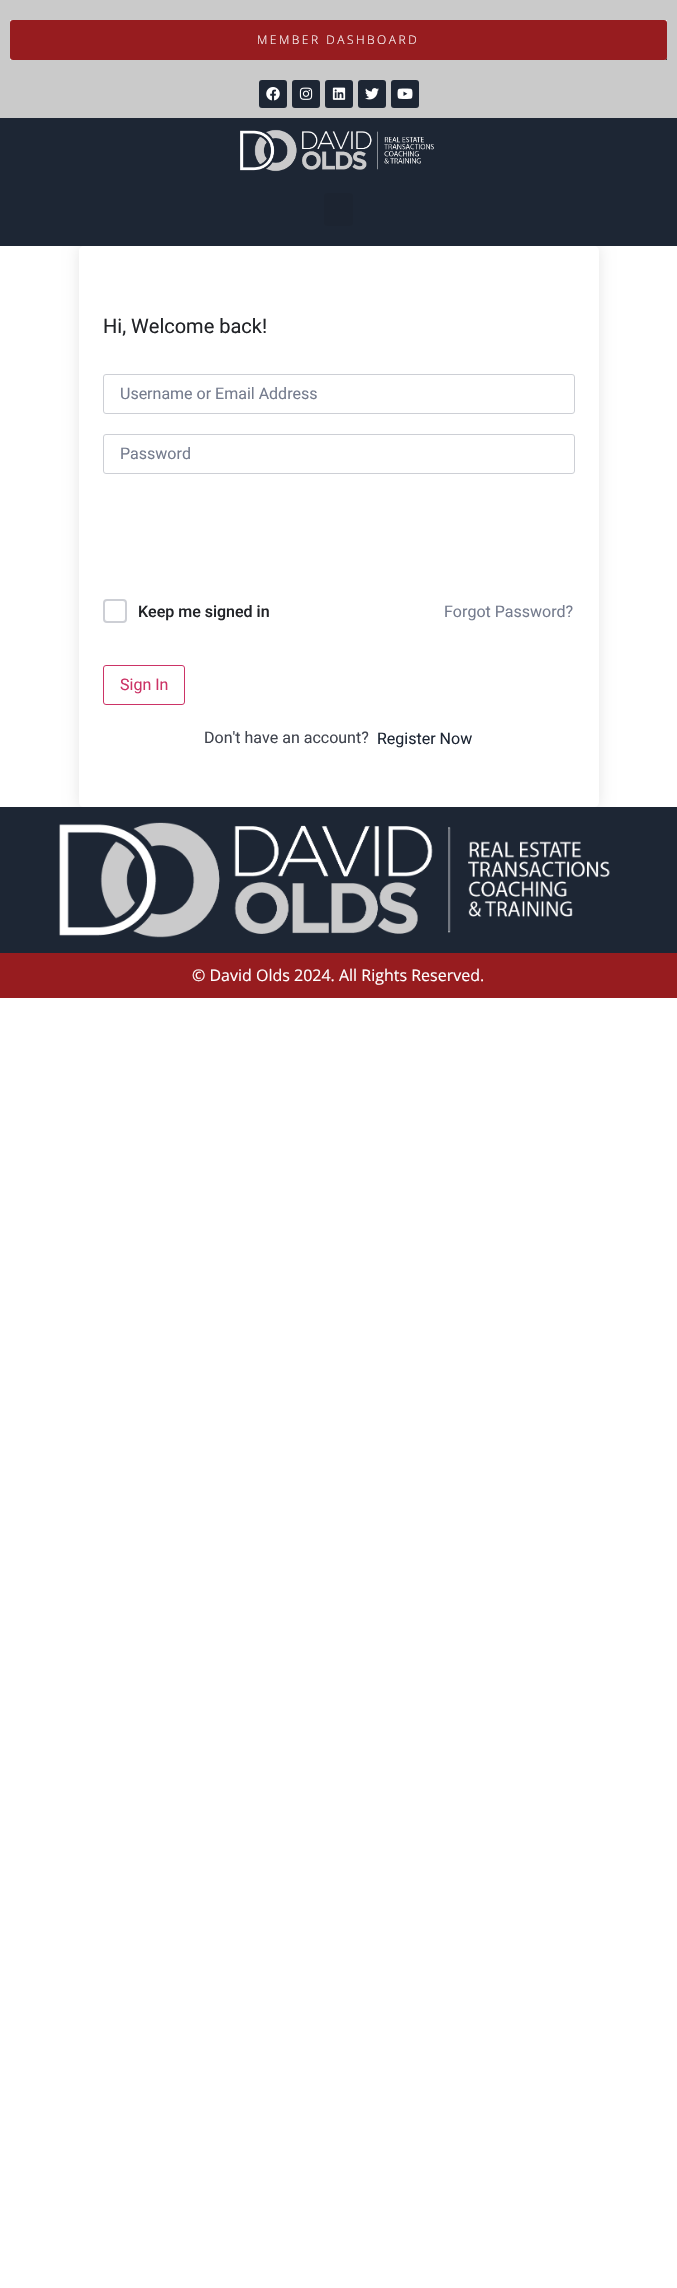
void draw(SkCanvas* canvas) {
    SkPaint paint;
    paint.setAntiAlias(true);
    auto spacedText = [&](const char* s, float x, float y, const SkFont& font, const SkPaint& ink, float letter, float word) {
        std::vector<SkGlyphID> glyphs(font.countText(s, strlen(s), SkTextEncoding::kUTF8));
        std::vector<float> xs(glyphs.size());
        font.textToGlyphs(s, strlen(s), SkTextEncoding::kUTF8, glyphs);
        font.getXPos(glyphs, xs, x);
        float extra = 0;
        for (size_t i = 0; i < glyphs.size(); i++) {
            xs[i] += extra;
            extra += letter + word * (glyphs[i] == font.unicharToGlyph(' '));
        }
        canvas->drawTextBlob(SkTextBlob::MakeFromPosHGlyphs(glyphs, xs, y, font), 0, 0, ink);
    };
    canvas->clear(0xFFFFFFFF);
    paint.setColor(0xFFCACACA);
    canvas->drawRect(SkRect::MakeXYWH(0, 0, 677, 118), paint);
    paint.setColor(0xFFFFFFFF);
    canvas->drawRect(SkRect::MakeXYWH(10, 20, 657, 40), paint);
    canvas->save();
    canvas->clipRect(SkRect::MakeXYWH(10, 20, 657, 40));
    paint.setColor(0xFF2F2F2F);
    canvas->drawPath(SkPathBuilder().moveTo(11, 60).cubicTo(12, 60, 13, 61, 14, 61).lineTo(665, 61).cubicTo(667, 61, 668, 60, 668, 58).lineTo(668, 24).cubicTo(668, 23, 667, 22, 667, 21).cubicTo(668, 24, 667, 37, 667, 40).lineTo(667, 51).cubicTo(667, 53, 668, 60, 664, 60).lineTo(13, 60).close().detach(), paint);
    canvas->restore();
    paint.setColor(0xFF971C1F);
    canvas->drawRoundRect(SkRect::MakeXYWH(10, 20, 657, 40), 3, 3, paint);
    SkFont font1(fontMgr->matchFamilyStyle("Open Sans", SkFontStyle(300, SkFontStyle::kNormal_Width, SkFontStyle::kUpright_Slant)), 12);
    font1.setSubpixel(true);
    paint.setColor(0xFFFFFFFF);
    spacedText("MEMBER DASHBOARD", 257, 44, font1, paint, 2.5f, 0);
    paint.setColor(0xFF1D2634);
    canvas->drawRoundRect(SkRect::MakeXYWH(259, 80, 28, 28), 3, 3, paint);
    canvas->drawImageRect(SkImages::DeferredFromEncodedData(SkData::MakeFromFileName("img1.png")), SkRect::MakeXYWH(266, 87, 14, 14), SkSamplingOptions());
    canvas->drawRoundRect(SkRect::MakeXYWH(292, 80, 28, 28), 3, 3, paint);
    canvas->drawImageRect(SkImages::DeferredFromEncodedData(SkData::MakeFromFileName("img2.png")), SkRect::MakeXYWH(299, 87, 14, 13), SkSamplingOptions());
    canvas->drawRoundRect(SkRect::MakeXYWH(325, 80, 28, 28), 3, 3, paint);
    canvas->drawImageRect(SkImages::DeferredFromEncodedData(SkData::MakeFromFileName("img3.png")), SkRect::MakeXYWH(332, 87, 14, 13), SkSamplingOptions());
    canvas->drawRoundRect(SkRect::MakeXYWH(358, 80, 28, 28), 3, 3, paint);
    canvas->drawImageRect(SkImages::DeferredFromEncodedData(SkData::MakeFromFileName("img4.png")), SkRect::MakeXYWH(365, 88, 14, 12), SkSamplingOptions());
    canvas->drawRoundRect(SkRect::MakeXYWH(391, 80, 28, 28), 3, 3, paint);
    canvas->drawImageRect(SkImages::DeferredFromEncodedData(SkData::MakeFromFileName("img5.png")), SkRect::MakeXYWH(397, 88, 16, 11), SkSamplingOptions());
    canvas->save();
    canvas->clipPath(SkPathBuilder(SkPathFillType::kEvenOdd).moveTo(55, 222).lineTo(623, 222).lineTo(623, 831).lineTo(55, 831).close().moveTo(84, 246).lineTo(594, 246).cubicTo(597, 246, 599, 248, 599, 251).lineTo(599, 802).cubicTo(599, 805, 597, 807, 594, 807).lineTo(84, 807).cubicTo(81, 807, 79, 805, 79, 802).lineTo(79, 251).cubicTo(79, 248, 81, 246, 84, 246).close().detach(), true);
    paint.setColor(0x1A000000);
    paint.setMaskFilter(SkMaskFilter::MakeBlur(kNormal_SkBlurStyle, 7.5f));
    canvas->drawRoundRect(SkRect::MakeXYWH(79, 246, 520, 561), 5, 5, paint);
    paint.setMaskFilter(nullptr);
    canvas->restore();
    paint.setColor(0xFF1D2634);
    canvas->drawRect(SkRect::MakeXYWH(0, 118, 677, 128), paint);
    canvas->drawImageRect(SkImages::DeferredFromEncodedData(SkData::MakeFromFileName("img6.png")), SkRect::MakeXYWH(240, 129, 194, 43), SkSamplingOptions());
    paint.setColor(0xFF1C2431);
    canvas->drawRoundRect(SkRect::MakeXYWH(324, 193, 29, 33), 3, 3, paint);
    SkFont font2(fontMgr->matchFamilyStyle("Roboto", SkFontStyle::Normal()), 20);
    font2.setSubpixel(true);
    paint.setColor(0xFF212327);
    canvas->drawString("Hi, Welcome back!", 103, 333, font2, paint);
    paint.setStyle(SkPaint::kStroke_Style);
    paint.setStrokeWidth(1);
    paint.setColor(0xFFCDCFD5);
    canvas->drawRoundRect(SkRect::MakeXYWH(103.5f, 374.5f, 471, 39), 2.5f, 2.5f, paint);
    SkFont font3(fontMgr->matchFamilyStyle("Roboto", SkFontStyle::Normal()), 16);
    font3.setSubpixel(true);
    paint.setStyle(SkPaint::kFill_Style);
    paint.setColor(0xFF757C8E);
    canvas->drawString("Username or Email Address", 120, 399, font3, paint);
    paint.setStyle(SkPaint::kStroke_Style);
    paint.setColor(0xFFCDCFD5);
    canvas->drawRoundRect(SkRect::MakeXYWH(103.5f, 434.5f, 471, 39), 2.5f, 2.5f, paint);
    paint.setStyle(SkPaint::kFill_Style);
    paint.setColor(0xFF757C8E);
    canvas->drawString("Password", 120, 459, font3, paint);
    paint.setStyle(SkPaint::kStroke_Style);
    paint.setStrokeWidth(2);
    paint.setColor(0xFFCDCFD5);
    canvas->drawRoundRect(SkRect::MakeXYWH(104, 600, 22, 22), 3, 3, paint);
    SkFont font4(fontMgr->matchFamilyStyle("Roboto", SkFontStyle(500, SkFontStyle::kNormal_Width, SkFontStyle::kUpright_Slant)), 16);
    font4.setSubpixel(true);
    paint.setStyle(SkPaint::kFill_Style);
    paint.setColor(0xFF212327);
    canvas->drawString("Keep me signed in", 138, 617, font4, paint);
    paint.setColor(0xFF757C8E);
    canvas->drawString("Forgot Password?", 444, 617, font3, paint);
    paint.setStyle(SkPaint::kStroke_Style);
    paint.setStrokeWidth(1);
    paint.setColor(0xFFCC3366);
    canvas->drawRoundRect(SkRect::MakeXYWH(103.5f, 665.5f, 81, 39), 2.5f, 2.5f, paint);
    paint.setStyle(SkPaint::kFill_Style);
    canvas->drawString("Sign In", 120, 690, font3, paint);
    paint.setColor(0xFF41454F);
    canvas->drawString("Don't have an account?", 204, 743, font3, paint);
    paint.setColor(0xFF1D2634);
    canvas->drawString("Register Now", 377, 744, font3, paint);
    canvas->drawRect(SkRect::MakeXYWH(0, 807, 677, 146), paint);
    canvas->drawImageRect(SkImages::DeferredFromEncodedData(SkData::MakeFromFileName("img7.png")), SkRect::MakeXYWH(59, 822, 551, 116), SkSamplingOptions());
    paint.setColor(0xFF971C1F);
    canvas->drawRect(SkRect::MakeXYWH(0, 953, 677, 45), paint);
    SkFont font5(fontMgr->matchFamilyStyle("Open Sans", SkFontStyle::Normal()), 16);
    font5.setSubpixel(true);
    paint.setColor(0xFFFFFFFF);
    canvas->drawString("© David Olds 2024. All Rights Reserved.", 192, 981, font5, paint);
}
